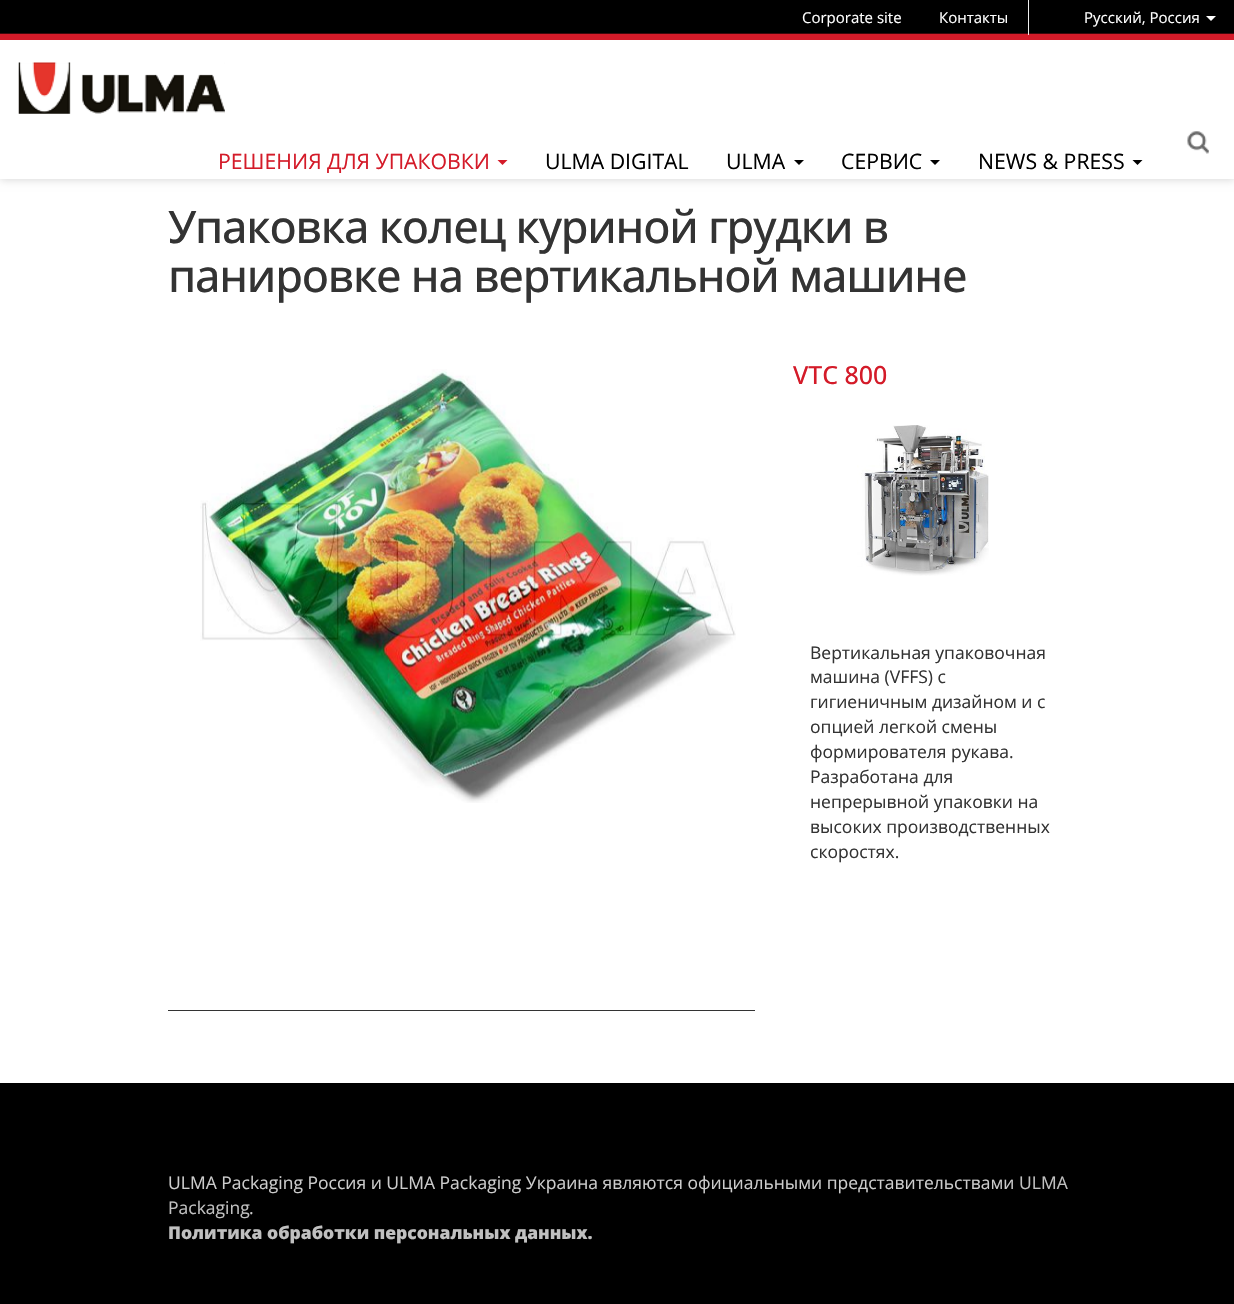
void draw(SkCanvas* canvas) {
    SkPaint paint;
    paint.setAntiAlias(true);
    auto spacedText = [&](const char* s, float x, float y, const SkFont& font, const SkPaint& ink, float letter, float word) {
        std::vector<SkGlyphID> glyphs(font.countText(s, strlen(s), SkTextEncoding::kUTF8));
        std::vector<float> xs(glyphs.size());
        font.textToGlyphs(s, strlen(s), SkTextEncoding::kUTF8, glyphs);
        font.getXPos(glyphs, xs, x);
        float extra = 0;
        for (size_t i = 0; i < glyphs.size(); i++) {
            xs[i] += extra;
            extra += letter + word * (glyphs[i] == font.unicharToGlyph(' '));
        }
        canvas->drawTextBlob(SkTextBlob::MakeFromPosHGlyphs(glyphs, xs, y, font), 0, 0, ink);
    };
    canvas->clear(0xFFFFFFFF);
    paint.setColor(0x26000000);
    paint.setMaskFilter(SkMaskFilter::MakeBlur(kNormal_SkBlurStyle, 4));
    canvas->drawRect(SkRect::MakeXYWH(0, 1, 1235, 179), paint);
    paint.setMaskFilter(nullptr);
    paint.setColor(0xFFFFFFFF);
    canvas->drawRect(SkRect::MakeXYWH(0, 40, 1234, 139), paint);
    canvas->drawImageRect(SkImages::DeferredFromEncodedData(SkData::MakeFromFileName("img1.png")), SkRect::MakeXYWH(0, 0, 1234, 40), SkSamplingOptions());
    paint.setColor(0xFFEFEFEF);
    canvas->drawRect(SkRect::MakeXYWH(1028, 0, 1, 35), paint);
    SkFont font1(fontMgr->matchFamilyStyle("Open Sans", SkFontStyle::Normal()), 15);
    font1.setSubpixel(true);
    paint.setColor(0xFFFFFFFF);
    canvas->drawString("Corporate site", 802, 23, font1, paint);
    canvas->drawString("Контакты", 939, 23, font1, paint);
    canvas->drawString("Pусский, Россия", 1084, 23, font1, paint);
    canvas->drawPath(SkPathBuilder().moveTo(1206, 16).lineTo(1216, 16).lineTo(1211, 21).close().detach(), paint);
    canvas->drawImageRect(SkImages::DeferredFromEncodedData(SkData::MakeFromFileName("img2.png")), SkRect::MakeXYWH(18, 62, 207, 52), SkSamplingOptions());
    canvas->drawImageRect(SkImages::DeferredFromEncodedData(SkData::MakeFromFileName("img3.png")), SkRect::MakeXYWH(1187, 131, 22, 23), SkSamplingOptions());
    SkFont font2(fontMgr->matchFamilyStyle("Open Sans", SkFontStyle::Normal()), 21.25f);
    font2.setSubpixel(true);
    paint.setColor(0xFFD41B29);
    canvas->drawString("РЕШЕНИЯ ДЛЯ УПАКОВКИ", 218, 169, font2, paint);
    canvas->drawPath(SkPathBuilder().moveTo(497.5f, 160).lineTo(507.5f, 160).lineTo(502.5f, 165).close().detach(), paint);
    paint.setColor(0xFF000000);
    canvas->drawString("ULMA DIGITAL", 545, 169, font2, paint);
    canvas->drawString("ULMA", 726, 169, font2, paint);
    canvas->drawPath(SkPathBuilder().moveTo(794, 160).lineTo(804, 160).lineTo(799, 165).close().detach(), paint);
    canvas->drawString("СЕРВИС", 841, 169, font2, paint);
    canvas->drawPath(SkPathBuilder().moveTo(930, 160).lineTo(940, 160).lineTo(935, 165).close().detach(), paint);
    canvas->drawString("NEWS & PRESS", 978, 169, font2, paint);
    canvas->drawPath(SkPathBuilder().moveTo(1132.5f, 160).lineTo(1142.5f, 160).lineTo(1137.5f, 165).close().detach(), paint);
    SkFont font3(fontMgr->matchFamilyStyle("Open Sans", SkFontStyle(500, SkFontStyle::kNormal_Width, SkFontStyle::kUpright_Slant)), 45);
    font3.setSubpixel(true);
    paint.setColor(0xFF333333);
    spacedText("Упаковка колец куриной грудки в", 168, 243, font3, paint, -1.25f, 0);
    spacedText("панировке на вертикальной машине", 168, 292, font3, paint, -1.25f, 0);
    canvas->drawRect(SkRect::MakeXYWH(168, 1010, 587, 1), paint);
    canvas->drawImageRect(SkImages::DeferredFromEncodedData(SkData::MakeFromFileName("img4.png")), SkRect::MakeXYWH(200, 369, 536, 434), SkSamplingOptions());
    SkFont font4(fontMgr->matchFamilyStyle("Open Sans", SkFontStyle(500, SkFontStyle::kNormal_Width, SkFontStyle::kUpright_Slant)), 25);
    font4.setSubpixel(true);
    paint.setColor(0xFFD41B29);
    canvas->drawString("VTC 800", 793, 384, font4, paint);
    canvas->drawImageRect(SkImages::DeferredFromEncodedData(SkData::MakeFromFileName("img5.png")), SkRect::MakeXYWH(857, 425, 132, 151), SkSamplingOptions());
    SkFont font5(fontMgr->matchFamilyStyle("Open Sans", SkFontStyle::Normal()), 17.5f);
    font5.setSubpixel(true);
    paint.setColor(0xFF333333);
    canvas->drawString("Вертикальная упаковочная", 810, 659, font5, paint);
    canvas->drawString("машина (VFFS) с", 810, 683, font5, paint);
    canvas->drawString("гигиеничным дизайном и с", 810, 708, font5, paint);
    canvas->drawString("опцией легкой смены", 810, 733, font5, paint);
    canvas->drawString("формирователя рукава.", 810, 758, font5, paint);
    canvas->drawString("Разработана для", 810, 783, font5, paint);
    canvas->drawString("непрерывной упаковки на", 810, 808, font5, paint);
    canvas->drawString("высоких производственных", 810, 833, font5, paint);
    canvas->drawString("скоростях.", 810, 858, font5, paint);
    paint.setColor(0xFF000000);
    canvas->drawRect(SkRect::MakeXYWH(0, 1083, 1234, 221), paint);
    paint.setColor(0xFFCCCCCC);
    canvas->drawString("ULMA Packaging Россия и ULMA Packaging Украина являются официальными представительствами", 168, 1189, font5, paint);
    paint.setColor(0xFFC0C0C0);
    canvas->drawString("ULMA", 1019, 1189, font5, paint);
    canvas->drawString("Packaging", 168, 1214, font5, paint);
    paint.setColor(0xFFCCCCCC);
    canvas->drawString(".", 249, 1214, font5, paint);
    SkFont font6(fontMgr->matchFamilyStyle("Open Sans", SkFontStyle(800, SkFontStyle::kNormal_Width, SkFontStyle::kUpright_Slant)), 17.5f);
    font6.setSubpixel(true);
    paint.setColor(0xFFC0C0C0);
    canvas->drawString("Политика обработки персональных данных.", 168, 1239, font6, paint);
}
